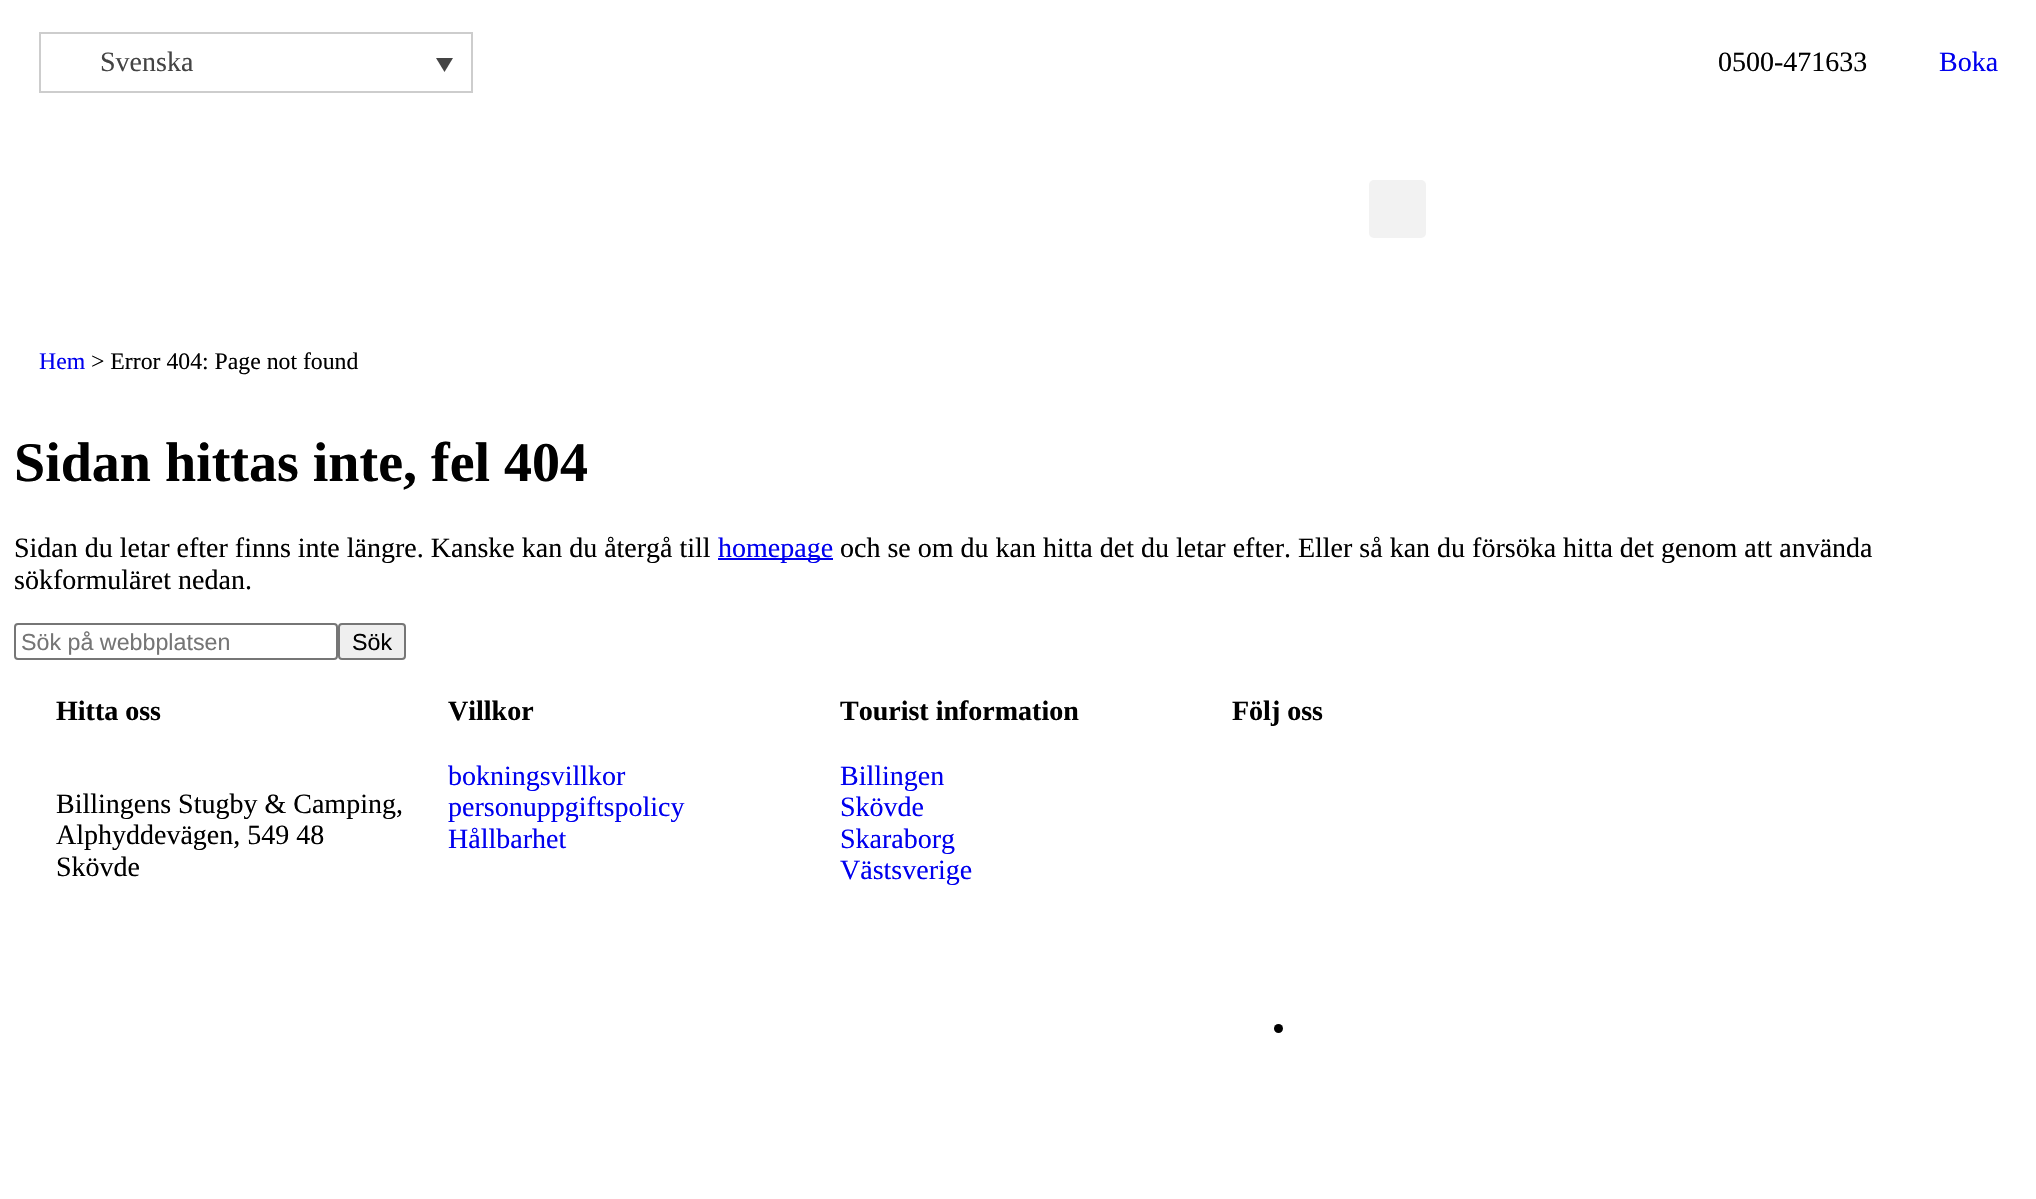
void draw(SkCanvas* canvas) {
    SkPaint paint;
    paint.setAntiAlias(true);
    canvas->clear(0xFFFFFFFF);
    paint.setStyle(SkPaint::kStroke_Style);
    paint.setStrokeWidth(2);
    paint.setColor(0xFFCDCDCD);
    canvas->drawRect(SkRect::MakeXYWH(40, 33, 432, 59), paint);
    SkFont font1(fontMgr->matchFamilyStyle("Liberation Serif", SkFontStyle::Normal()), 28);
    font1.setSubpixel(true);
    paint.setStyle(SkPaint::kFill_Style);
    paint.setColor(0xFF444444);
    canvas->drawString("Svenska", 100, 71, font1, paint);
    canvas->drawPath(SkPathBuilder().moveTo(436, 58).lineTo(453, 58).lineTo(444.5f, 72).close().detach(), paint);
    paint.setColor(0xFF000000);
    canvas->drawString("0500-471633", 1718, 71, font1, paint);
    paint.setColor(0xFF0000EE);
    canvas->drawString("Boka", 1939, 71, font1, paint);
    paint.setColor(0xFFF2F2F2);
    canvas->drawRoundRect(SkRect::MakeXYWH(1369, 180, 57, 58), 5, 5, paint);
    SkFont font2(fontMgr->matchFamilyStyle("Liberation Serif", SkFontStyle::Normal()), 23.75f);
    font2.setSubpixel(true);
    paint.setColor(0xFF0000EE);
    canvas->drawString("Hem", 39, 369, font2, paint);
    paint.setColor(0xFF000000);
    canvas->drawString("> Error 404: Page not found", 91, 369, font2, paint);
    SkFont font3(fontMgr->matchFamilyStyle("Liberation Serif", SkFontStyle::Bold()), 56);
    font3.setSubpixel(true);
    canvas->drawString("Sidan hittas inte, fel 404", 14, 481, font3, paint);
    canvas->drawString("Sidan du letar efter finns inte längre. Kanske kan du återgå till", 14, 557, font1, paint);
    paint.setColor(0xFF0000EE);
    canvas->drawRect(SkRect::MakeXYWH(718, 558, 115, 2), paint);
    canvas->drawString("homepage", 718, 557, font1, paint);
    paint.setColor(0xFF000000);
    canvas->drawString("och se om du kan hitta det du letar efter. Eller så kan du försöka hitta det genom att använda", 840, 557, font1, paint);
    canvas->drawString("sökformuläret nedan.", 14, 589, font1, paint);
    paint.setStyle(SkPaint::kStroke_Style);
    paint.setColor(0xFF767676);
    canvas->drawRoundRect(SkRect::MakeXYWH(15, 624, 322, 35), 3, 3, paint);
    SkFont font4(fontMgr->matchFamilyStyle("Liberation Sans", SkFontStyle::Normal()), 23.25f);
    font4.setSubpixel(true);
    paint.setStyle(SkPaint::kFill_Style);
    paint.setColor(0xFF757575);
    canvas->drawString("Sök på webbplatsen", 21, 650, font4, paint);
    paint.setColor(0xFFEFEFEF);
    canvas->drawRoundRect(SkRect::MakeXYWH(339, 624, 66, 35), 3, 3, paint);
    paint.setStyle(SkPaint::kStroke_Style);
    paint.setColor(0xFF767676);
    canvas->drawRoundRect(SkRect::MakeXYWH(339, 624, 66, 35), 3, 3, paint);
    paint.setStyle(SkPaint::kFill_Style);
    paint.setColor(0xFF000000);
    canvas->drawString("Sök", 352, 650, font4, paint);
    SkFont font5(fontMgr->matchFamilyStyle("Liberation Serif", SkFontStyle::Bold()), 28);
    font5.setSubpixel(true);
    canvas->drawString("Hitta oss", 56, 720, font5, paint);
    canvas->drawString("Billingens Stugby & Camping,", 56, 813, font1, paint);
    canvas->drawString("Alphyddevägen, 549 48", 56, 844, font1, paint);
    canvas->drawString("Skövde", 56, 876, font1, paint);
    canvas->drawString("Villkor", 448, 720, font5, paint);
    paint.setColor(0xFF0000EE);
    canvas->drawString("bokningsvillkor", 448, 785, font1, paint);
    canvas->drawString("personuppgiftspolicy", 448, 816, font1, paint);
    canvas->drawString("Hållbarhet", 448, 848, font1, paint);
    paint.setColor(0xFF000000);
    canvas->drawString("Tourist information", 840, 720, font5, paint);
    paint.setColor(0xFF0000EE);
    canvas->drawString("Billingen", 840, 785, font1, paint);
    canvas->drawString("Skövde", 840, 816, font1, paint);
    canvas->drawString("Skaraborg", 840, 848, font1, paint);
    canvas->drawString("Västsverige", 840, 879, font1, paint);
    paint.setColor(0xFF000000);
    canvas->drawString("Följ oss", 1232, 720, font5, paint);
    canvas->drawCircle(1278.5f, 1028.5f, 4.5f, paint);
}
